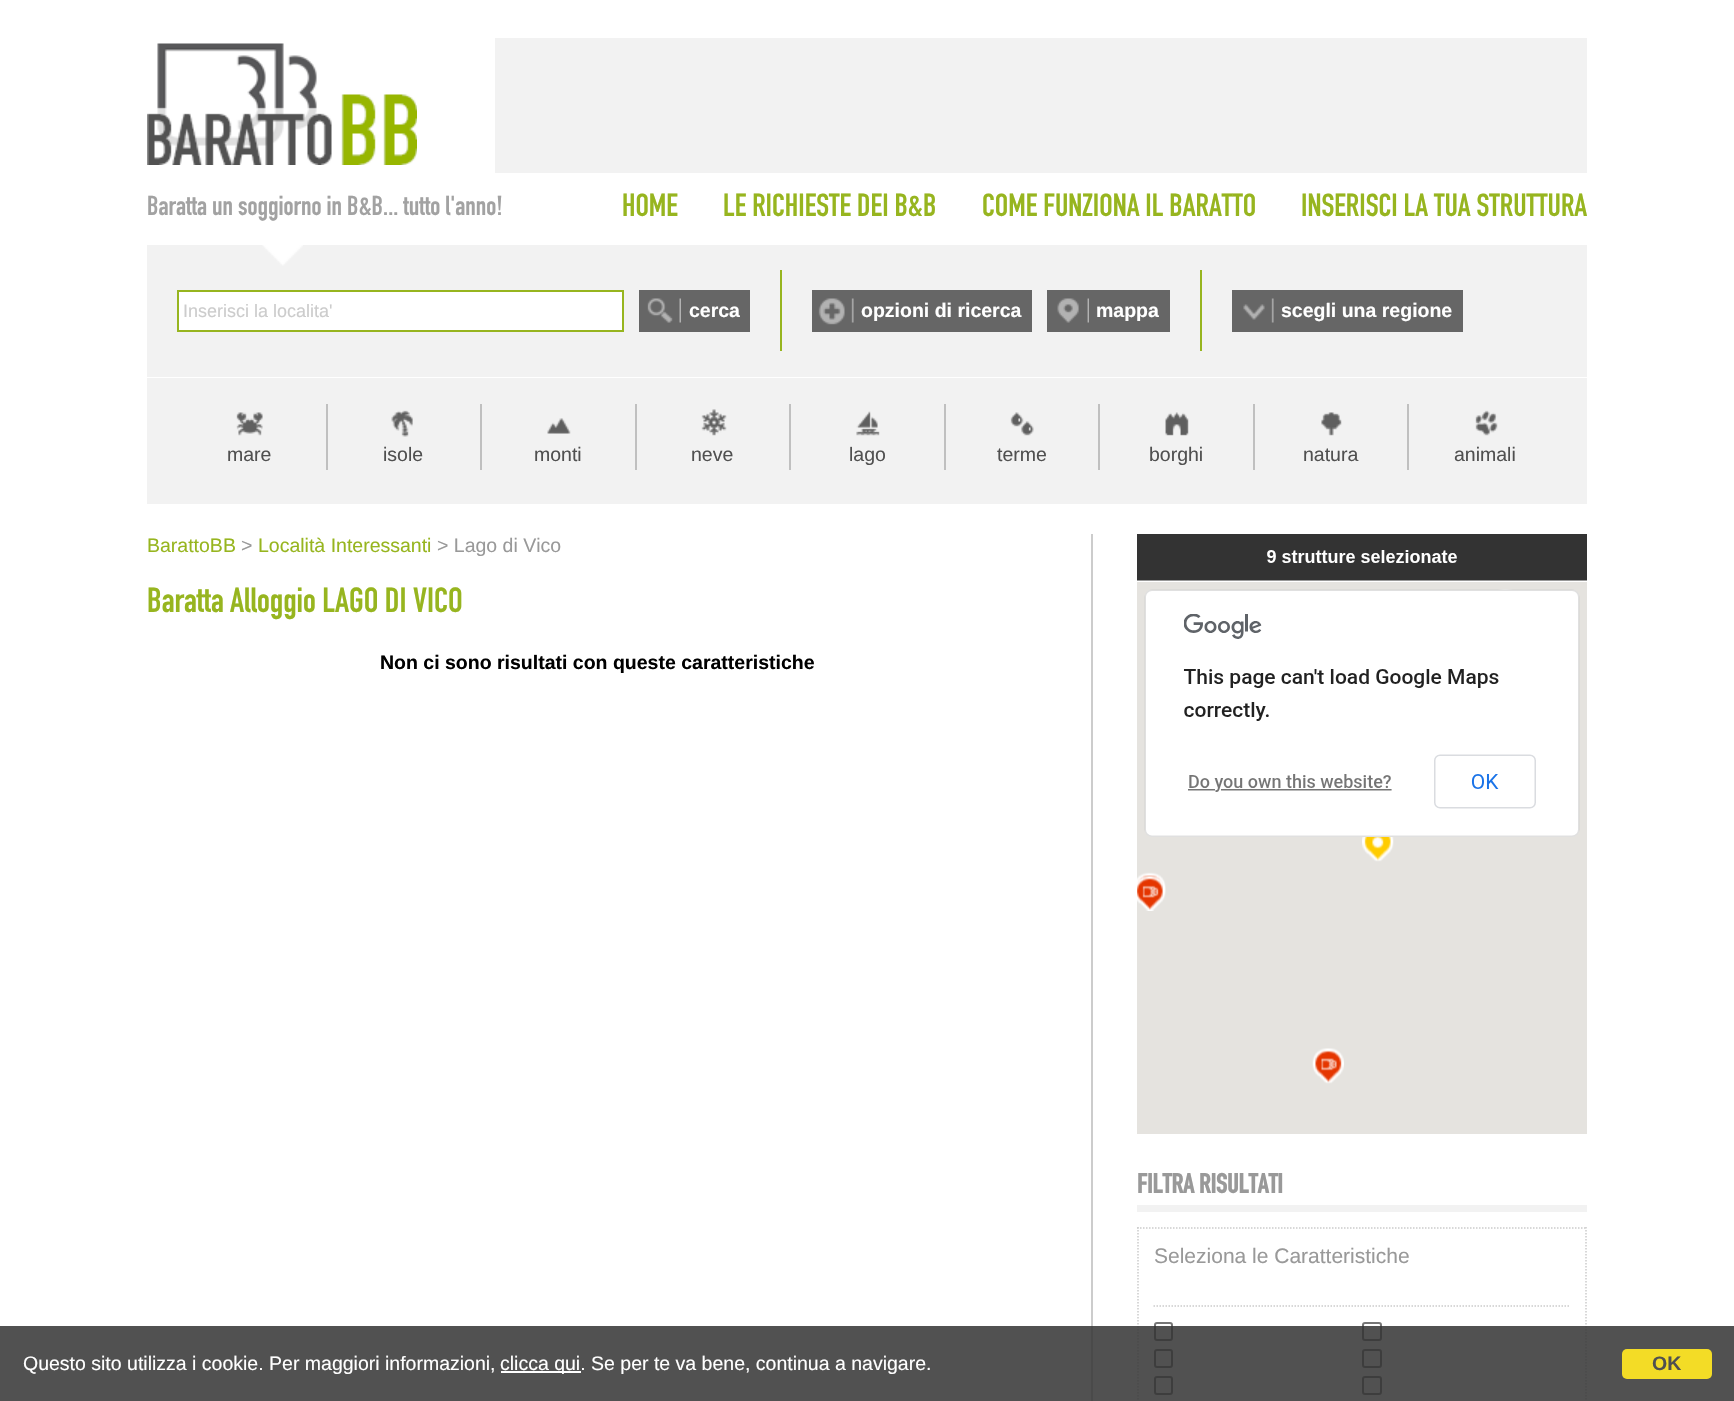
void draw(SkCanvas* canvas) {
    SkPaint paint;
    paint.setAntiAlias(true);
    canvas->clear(0xFFFFFFFF);
    canvas->drawImageRect(SkImages::DeferredFromEncodedData(SkData::MakeFromFileName("img1.png")), SkRect::MakeXYWH(147, 43, 270, 122), SkSamplingOptions());
    paint.setColor(0xFFF2F2F2);
    canvas->drawRect(SkRect::MakeXYWH(495, 38, 1092, 135), paint);
    SkFont font1(fontMgr->matchFamilyStyle("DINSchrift", SkFontStyle::Normal()), 27);
    font1.setSubpixel(true);
    paint.setColor(0xFFA2A2A2);
    canvas->drawString("Baratta un soggiorno in B&B... tutto l'anno!", 147, 215, font1, paint);
    SkFont font2(fontMgr->matchFamilyStyle("DINSchrift", SkFontStyle::Normal()), 31.5f);
    font2.setSubpixel(true);
    paint.setColor(0xFF97B51F);
    canvas->drawString("HOME", 622, 216, font2, paint);
    canvas->drawString("LE RICHIESTE DEI B&B", 723, 216, font2, paint);
    canvas->drawString("COME FUNZIONA IL BARATTO", 982, 216, font2, paint);
    canvas->drawString("INSERISCI LA TUA STRUTTURA", 1301, 216, font2, paint);
    paint.setColor(0xFFF2F2F2);
    canvas->drawRect(SkRect::MakeXYWH(147, 245, 1440, 132), paint);
    canvas->drawImageRect(SkImages::DeferredFromEncodedData(SkData::MakeFromFileName("img2.png")), SkRect::MakeXYWH(262, 245, 41, 21), SkSamplingOptions());
    paint.setColor(0xFF97B51F);
    canvas->drawRect(SkRect::MakeXYWH(780, 270, 2, 81), paint);
    paint.setColor(0xFFFFFFFF);
    canvas->drawRect(SkRect::MakeXYWH(178, 291, 445, 40), paint);
    paint.setStyle(SkPaint::kStroke_Style);
    paint.setStrokeWidth(2);
    paint.setColor(0xFF97B51F);
    canvas->drawRect(SkRect::MakeXYWH(178, 291, 445, 40), paint);
    SkFont font3(fontMgr->matchFamilyStyle("Liberation Sans", SkFontStyle::Normal()), 18);
    font3.setSubpixel(true);
    paint.setStyle(SkPaint::kFill_Style);
    paint.setColor(0xFFCCCCCC);
    canvas->drawString("Inserisci la localita'", 183, 317, font3, paint);
    paint.setColor(0xFF666666);
    canvas->drawRect(SkRect::MakeXYWH(639, 290, 111, 42), paint);
    canvas->drawImageRect(SkImages::DeferredFromEncodedData(SkData::MakeFromFileName("img3.png")), SkRect::MakeXYWH(647, 298, 34, 25), SkSamplingOptions());
    SkFont font4(fontMgr->matchFamilyStyle("Liberation Sans", SkFontStyle::Bold()), 19.5f);
    font4.setSubpixel(true);
    paint.setColor(0xFFFFFFFF);
    canvas->drawString("cerca", 689, 317, font4, paint);
    paint.setColor(0xFF97B51F);
    canvas->drawRect(SkRect::MakeXYWH(1200, 270, 2, 81), paint);
    paint.setColor(0xFF666666);
    canvas->drawRect(SkRect::MakeXYWH(812, 290, 220, 42), paint);
    canvas->drawImageRect(SkImages::DeferredFromEncodedData(SkData::MakeFromFileName("img4.png")), SkRect::MakeXYWH(818, 298, 36, 27), SkSamplingOptions());
    paint.setColor(0xFFFFFFFF);
    canvas->drawString("opzioni di ricerca", 861, 317, font4, paint);
    paint.setColor(0xFF666666);
    canvas->drawRect(SkRect::MakeXYWH(1047, 290, 123, 42), paint);
    canvas->drawImageRect(SkImages::DeferredFromEncodedData(SkData::MakeFromFileName("img5.png")), SkRect::MakeXYWH(1057, 298, 32, 25), SkSamplingOptions());
    paint.setColor(0xFFFFFFFF);
    canvas->drawString("mappa", 1096, 317, font4, paint);
    paint.setColor(0xFF666666);
    canvas->drawRect(SkRect::MakeXYWH(1232, 290, 231, 42), paint);
    canvas->drawImageRect(SkImages::DeferredFromEncodedData(SkData::MakeFromFileName("img6.png")), SkRect::MakeXYWH(1243, 298, 31, 25), SkSamplingOptions());
    paint.setColor(0xFFFFFFFF);
    canvas->drawString("scegli una regione", 1281, 317, font4, paint);
    paint.setColor(0xFFF2F2F2);
    canvas->drawRect(SkRect::MakeXYWH(147, 378, 1440, 126), paint);
    canvas->drawImageRect(SkImages::DeferredFromEncodedData(SkData::MakeFromFileName("img7.png")), SkRect::MakeXYWH(236, 412, 27, 24), SkSamplingOptions());
    paint.setColor(0xFFC0C0C0);
    canvas->drawRect(SkRect::MakeXYWH(326, 404, 2, 66), paint);
    SkFont font5(fontMgr->matchFamilyStyle("Liberation Sans", SkFontStyle::Normal()), 19.5f);
    font5.setSubpixel(true);
    paint.setColor(0xFF505050);
    canvas->drawString("mare", 227, 461, font5, paint);
    canvas->drawImageRect(SkImages::DeferredFromEncodedData(SkData::MakeFromFileName("img8.png")), SkRect::MakeXYWH(391, 410, 22, 27), SkSamplingOptions());
    paint.setColor(0xFFC0C0C0);
    canvas->drawRect(SkRect::MakeXYWH(480, 404, 2, 66), paint);
    paint.setColor(0xFF505050);
    canvas->drawString("isole", 383, 461, font5, paint);
    canvas->drawImageRect(SkImages::DeferredFromEncodedData(SkData::MakeFromFileName("img9.png")), SkRect::MakeXYWH(547, 418, 24, 16), SkSamplingOptions());
    paint.setColor(0xFFC0C0C0);
    canvas->drawRect(SkRect::MakeXYWH(635, 404, 2, 66), paint);
    paint.setColor(0xFF505050);
    canvas->drawString("monti", 534, 461, font5, paint);
    canvas->drawImageRect(SkImages::DeferredFromEncodedData(SkData::MakeFromFileName("img10.png")), SkRect::MakeXYWH(701, 409, 26, 27), SkSamplingOptions());
    paint.setColor(0xFFC0C0C0);
    canvas->drawRect(SkRect::MakeXYWH(789, 404, 2, 66), paint);
    paint.setColor(0xFF505050);
    canvas->drawString("neve", 691, 461, font5, paint);
    canvas->drawImageRect(SkImages::DeferredFromEncodedData(SkData::MakeFromFileName("img11.png")), SkRect::MakeXYWH(856, 411, 24, 25), SkSamplingOptions());
    paint.setColor(0xFFC0C0C0);
    canvas->drawRect(SkRect::MakeXYWH(944, 404, 2, 66), paint);
    paint.setColor(0xFF505050);
    canvas->drawString("lago", 849, 461, font5, paint);
    canvas->drawImageRect(SkImages::DeferredFromEncodedData(SkData::MakeFromFileName("img12.png")), SkRect::MakeXYWH(1010, 412, 24, 24), SkSamplingOptions());
    paint.setColor(0xFFC0C0C0);
    canvas->drawRect(SkRect::MakeXYWH(1098, 404, 2, 66), paint);
    paint.setColor(0xFF505050);
    canvas->drawString("terme", 997, 461, font5, paint);
    canvas->drawImageRect(SkImages::DeferredFromEncodedData(SkData::MakeFromFileName("img13.png")), SkRect::MakeXYWH(1165, 412, 24, 24), SkSamplingOptions());
    paint.setColor(0xFFC0C0C0);
    canvas->drawRect(SkRect::MakeXYWH(1253, 404, 2, 66), paint);
    paint.setColor(0xFF505050);
    canvas->drawString("borghi", 1149, 461, font5, paint);
    canvas->drawImageRect(SkImages::DeferredFromEncodedData(SkData::MakeFromFileName("img14.png")), SkRect::MakeXYWH(1321, 412, 21, 24), SkSamplingOptions());
    paint.setColor(0xFFC0C0C0);
    canvas->drawRect(SkRect::MakeXYWH(1407, 404, 2, 66), paint);
    paint.setColor(0xFF505050);
    canvas->drawString("natura", 1303, 461, font5, paint);
    canvas->drawImageRect(SkImages::DeferredFromEncodedData(SkData::MakeFromFileName("img15.png")), SkRect::MakeXYWH(1475, 410, 23, 26), SkSamplingOptions());
    canvas->drawString("animali", 1454, 461, font5, paint);
    paint.setColor(0xFF97B51F);
    canvas->drawString("BarattoBB", 147, 552, font5, paint);
    paint.setColor(0xFF999999);
    canvas->drawString(">", 241, 552, font5, paint);
    paint.setColor(0xFF97B51F);
    canvas->drawString("Località Interessanti", 258, 552, font5, paint);
    paint.setColor(0xFF999999);
    canvas->drawString("> Lago di Vico", 437, 552, font5, paint);
    SkFont font6(fontMgr->matchFamilyStyle("DINSchrift", SkFontStyle::Normal()), 34.5f);
    font6.setSubpixel(true);
    paint.setColor(0xFF97B51F);
    canvas->drawString("Baratta Alloggio LAGO DI VICO", 147, 612, font6, paint);
    paint.setColor(0xFF000000);
    canvas->drawString("Non ci sono risultati con queste caratteristiche", 380, 669, font4, paint);
    paint.setColor(0xFFCCCCCC);
    canvas->drawRect(SkRect::MakeXYWH(1091, 534, 2, 867), paint);
    canvas->drawImageRect(SkImages::DeferredFromEncodedData(SkData::MakeFromFileName("img16.png")), SkRect::MakeXYWH(1137, 534, 450, 600), SkSamplingOptions());
    paint.setColor(0xFFF2F2F2);
    canvas->drawRect(SkRect::MakeXYWH(1137, 1205, 450, 7), paint);
    SkFont font7(fontMgr->matchFamilyStyle("DINSchrift", SkFontStyle::Bold()), 27);
    font7.setSubpixel(true);
    paint.setColor(0xFF999999);
    canvas->drawString("FILTRA RISULTATI", 1137, 1193, font7, paint);
    paint.setStyle(SkPaint::kStroke_Style);
    paint.setStrokeWidth(1.5f);
    paint.setColor(0xFFCCCCCC);
    paint.setPathEffect(SkDashPathEffect::Make({{1.5f, 1.5f}}, 0));
    canvas->drawPath(SkPathBuilder().moveTo(1137, 1228).lineTo(1587, 1228).detach(), paint);
    paint.setPathEffect(nullptr);
    paint.setPathEffect(SkDashPathEffect::Make({{1.5f, 1.5f}}, 0));
    canvas->drawPath(SkPathBuilder().moveTo(1586, 1227).lineTo(1586, 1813.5f).detach(), paint);
    paint.setPathEffect(nullptr);
    paint.setPathEffect(SkDashPathEffect::Make({{1.5f, 1.5f}}, 0));
    canvas->drawPath(SkPathBuilder().moveTo(1138, 1227).lineTo(1138, 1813.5f).detach(), paint);
    paint.setPathEffect(nullptr);
    SkFont font8(fontMgr->matchFamilyStyle("Liberation Sans", SkFontStyle::Normal()), 21);
    font8.setSubpixel(true);
    paint.setStyle(SkPaint::kFill_Style);
    paint.setColor(0xFF999999);
    canvas->drawString("Seleziona le Caratteristiche", 1154, 1263, font8, paint);
    paint.setStyle(SkPaint::kStroke_Style);
    paint.setColor(0xFFCCCCCC);
    paint.setPathEffect(SkDashPathEffect::Make({{1.5f, 1.5f}}, 0));
    canvas->drawPath(SkPathBuilder().moveTo(1153.5f, 1306).lineTo(1570.5f, 1306).detach(), paint);
    paint.setPathEffect(nullptr);
    paint.setStrokeWidth(2);
    paint.setColor(0xFF767676);
    canvas->drawRoundRect(SkRect::MakeXYWH(1155, 1323, 17, 17), 2, 2, paint);
    canvas->drawRoundRect(SkRect::MakeXYWH(1155, 1350, 17, 17), 2, 2, paint);
    canvas->drawRoundRect(SkRect::MakeXYWH(1155, 1377, 17, 17), 2, 2, paint);
    canvas->drawRoundRect(SkRect::MakeXYWH(1363, 1323, 18, 17), 2, 2, paint);
    canvas->drawRoundRect(SkRect::MakeXYWH(1363, 1350, 18, 17), 2, 2, paint);
    canvas->drawRoundRect(SkRect::MakeXYWH(1363, 1377, 18, 17), 2, 2, paint);
    paint.setStyle(SkPaint::kFill_Style);
    paint.setColor(0xD9333333);
    canvas->drawRect(SkRect::MakeXYWH(0, 1326, 1734, 75), paint);
    paint.setColor(0xFFFFFFFF);
    canvas->drawString("Questo sito utilizza i cookie. Per maggiori informazioni,", 23, 1370, font5, paint);
    canvas->drawRect(SkRect::MakeXYWH(501, 1371, 80, 2), paint);
    canvas->drawString("clicca qui. Se per te va bene, continua a navigare.", 500, 1370, font5, paint);
    paint.setColor(0xFFF3DC26);
    canvas->drawRoundRect(SkRect::MakeXYWH(1622, 1349, 90, 30), 5, 5, paint);
    paint.setColor(0xFF505050);
    canvas->drawString("OK", 1652, 1370, font4, paint);
}
